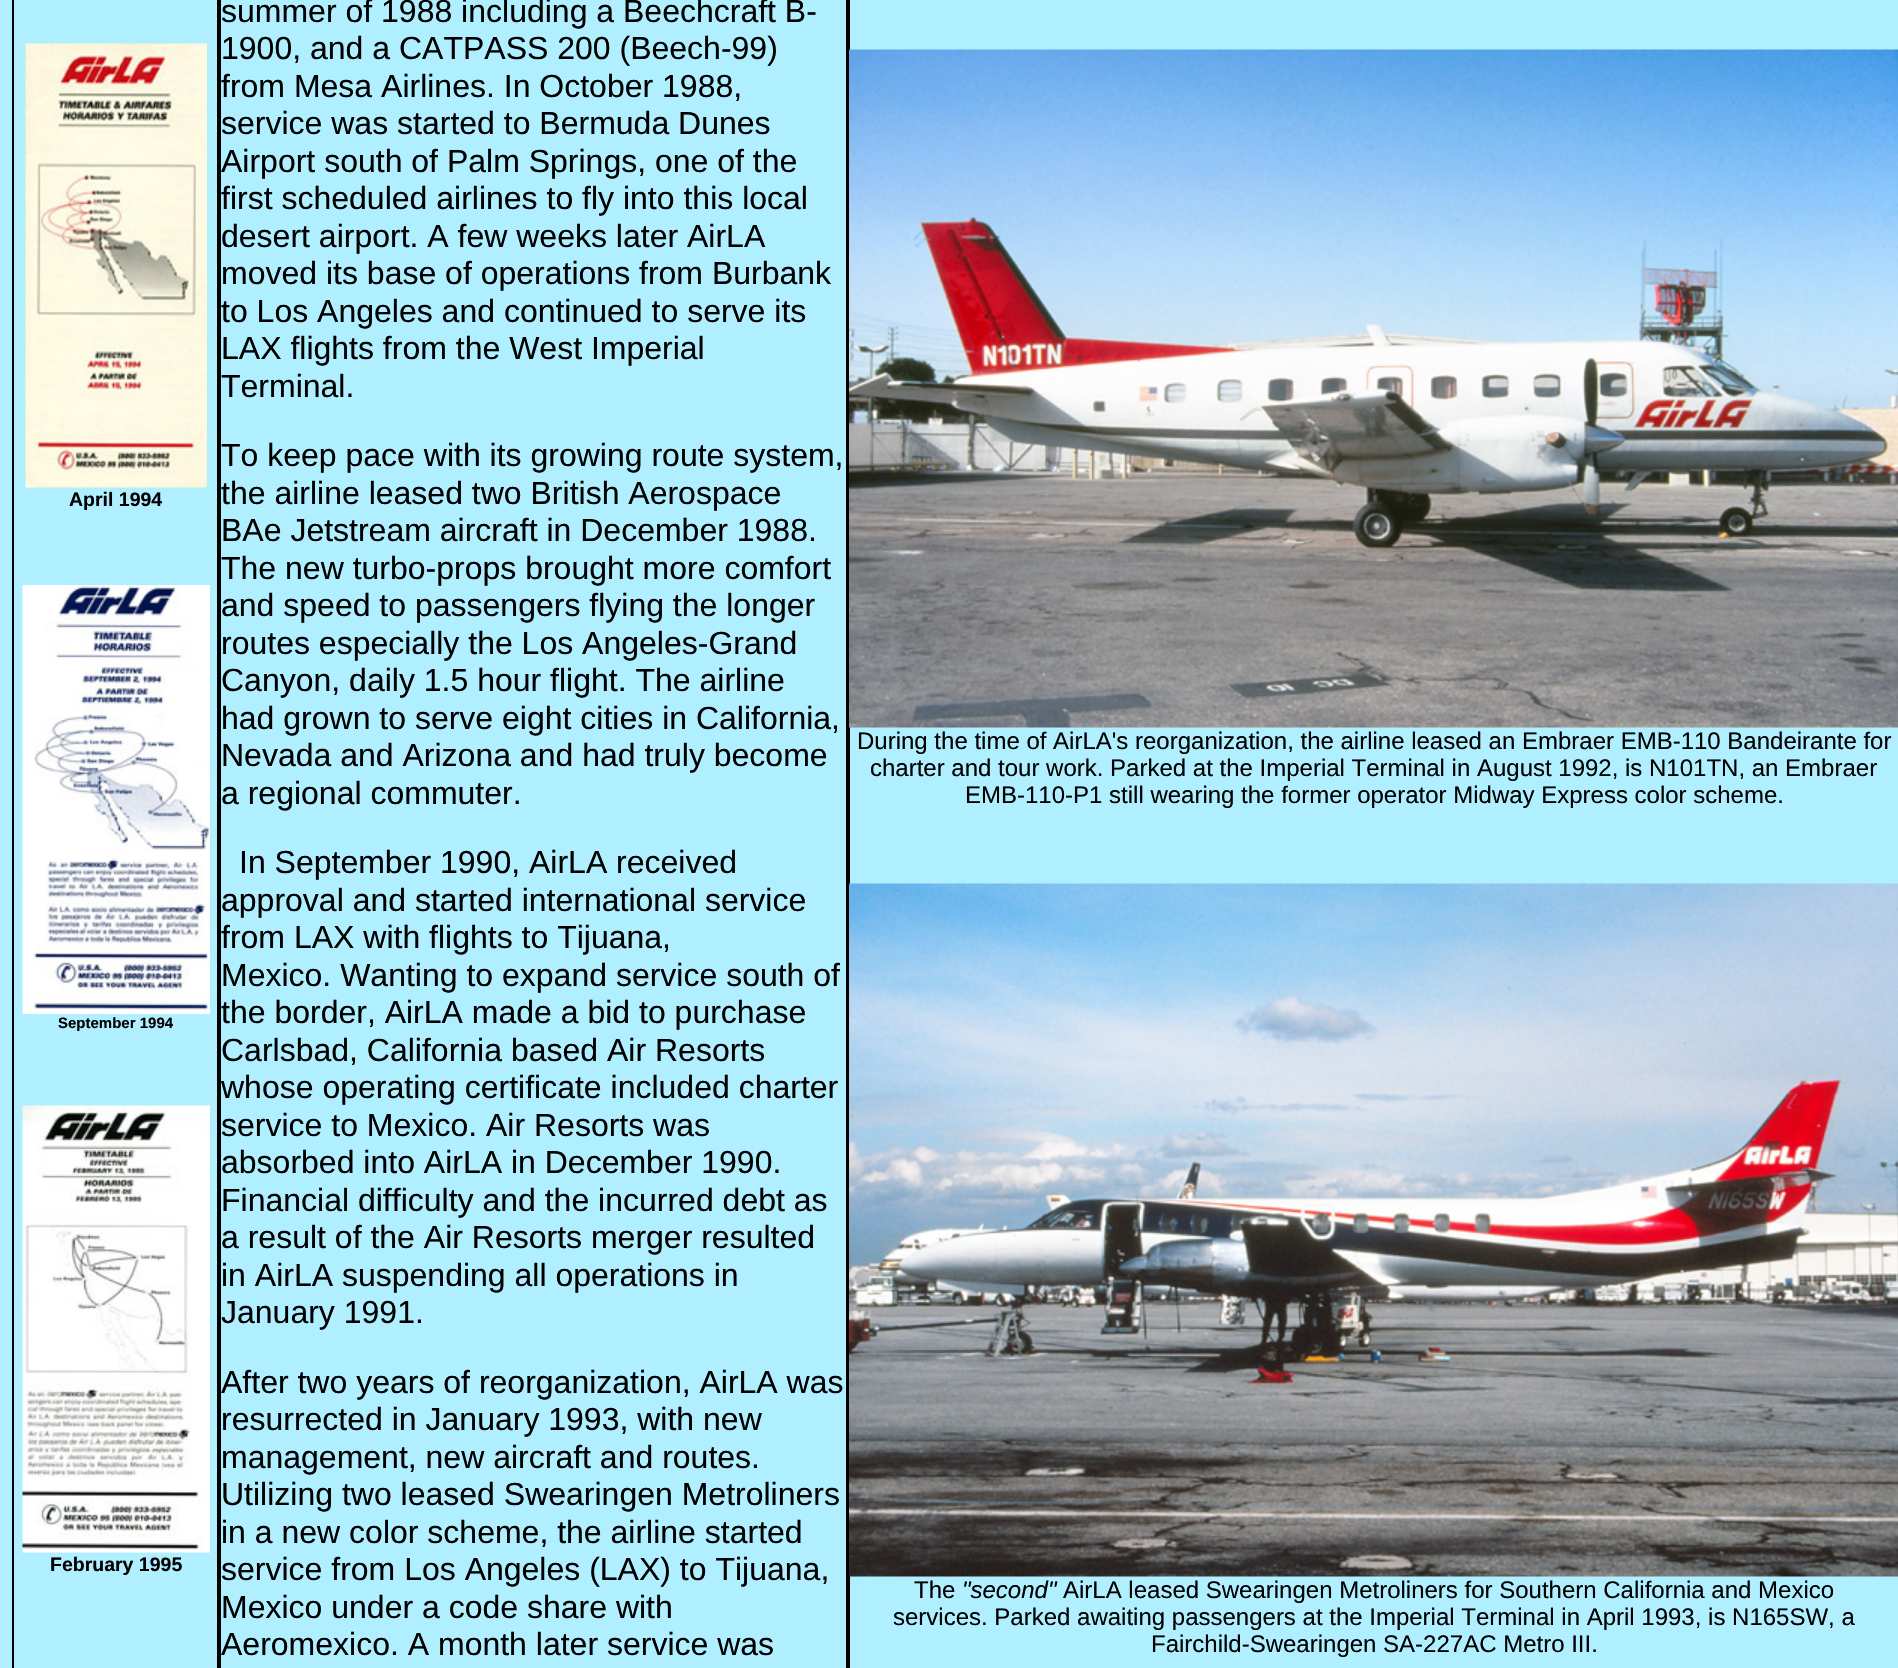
void draw(SkCanvas* canvas) {
    SkPaint paint;
    paint.setAntiAlias(true);
    canvas->clear(0xFFB0EFFF);
    paint.setStyle(SkPaint::kStroke_Style);
    paint.setStrokeWidth(2);
    paint.setColor(0xFF000000);
    canvas->drawRect(SkRect::MakeXYWH(13, -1, 205, 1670), paint);
    canvas->drawImageRect(SkImages::DeferredFromEncodedData(SkData::MakeFromFileName("img1.png")), SkRect::MakeXYWH(25, 43, 182, 445), SkSamplingOptions());
    SkFont font1(fontMgr->matchFamilyStyle("Liberation Sans", SkFontStyle::Bold()), 19.5f);
    font1.setSubpixel(true);
    paint.setStyle(SkPaint::kFill_Style);
    canvas->drawString("April 1994", 69, 506, font1, paint);
    canvas->drawImageRect(SkImages::DeferredFromEncodedData(SkData::MakeFromFileName("img2.png")), SkRect::MakeXYWH(22, 585, 188, 429), SkSamplingOptions());
    SkFont font2(fontMgr->matchFamilyStyle("Liberation Sans", SkFontStyle::Bold()), 15);
    font2.setSubpixel(true);
    canvas->drawString("September 1994", 58, 1028, font2, paint);
    canvas->drawImageRect(SkImages::DeferredFromEncodedData(SkData::MakeFromFileName("img3.png")), SkRect::MakeXYWH(22, 1105, 188, 448), SkSamplingOptions());
    canvas->drawString("February 1995", 50, 1571, font1, paint);
    paint.setStyle(SkPaint::kStroke_Style);
    canvas->drawRect(SkRect::MakeXYWH(220, -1, 627, 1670), paint);
    SkFont font3(fontMgr->matchFamilyStyle("Liberation Sans", SkFontStyle::Normal()), 32);
    font3.setSubpixel(true);
    paint.setStyle(SkPaint::kFill_Style);
    canvas->drawString("summer of 1988 including a Beechcraft B-", 221, 22, font3, paint);
    canvas->drawString("1900, and a CATPASS 200 (Beech-99)", 221, 59, font3, paint);
    canvas->drawString("from Mesa Airlines. In October 1988,", 221, 97, font3, paint);
    canvas->drawString("service was started to Bermuda Dunes", 221, 134, font3, paint);
    canvas->drawString("Airport south of Palm Springs, one of the", 221, 172, font3, paint);
    canvas->drawString("first scheduled airlines to fly into this local", 221, 209, font3, paint);
    canvas->drawString("desert airport. A few weeks later AirLA", 221, 247, font3, paint);
    canvas->drawString("moved its base of operations from Burbank", 221, 284, font3, paint);
    canvas->drawString("to Los Angeles and continued to serve its", 221, 322, font3, paint);
    canvas->drawString("LAX flights from the West Imperial", 221, 359, font3, paint);
    canvas->drawString("Terminal.", 221, 397, font3, paint);
    canvas->drawString("To keep pace with its growing route system,", 221, 466, font3, paint);
    canvas->drawString("the airline leased two British Aerospace", 221, 504, font3, paint);
    canvas->drawString("BAe Jetstream aircraft in December 1988.", 221, 541, font3, paint);
    canvas->drawString("The new turbo-props brought more comfort", 221, 579, font3, paint);
    canvas->drawString("and speed to passengers flying the longer", 221, 616, font3, paint);
    canvas->drawString("routes especially the Los Angeles-Grand", 221, 654, font3, paint);
    canvas->drawString("Canyon, daily 1.5 hour flight. The airline", 221, 691, font3, paint);
    canvas->drawString("had grown to serve eight cities in California,", 221, 729, font3, paint);
    canvas->drawString("Nevada and Arizona and had truly become", 221, 766, font3, paint);
    canvas->drawString("a regional commuter.", 221, 804, font3, paint);
    canvas->drawString("In September 1990, AirLA received", 239, 873, font3, paint);
    canvas->drawString("approval and started international service", 221, 911, font3, paint);
    canvas->drawString("from LAX with flights to Tijuana,", 221, 948, font3, paint);
    canvas->drawString("Mexico. Wanting to expand service south of", 221, 986, font3, paint);
    canvas->drawString("the border, AirLA made a bid to purchase", 221, 1023, font3, paint);
    canvas->drawString("Carlsbad, California based Air Resorts", 221, 1061, font3, paint);
    canvas->drawString("whose operating certificate included charter", 221, 1098, font3, paint);
    canvas->drawString("service to Mexico. Air Resorts was", 221, 1136, font3, paint);
    canvas->drawString("absorbed into AirLA in December 1990.", 221, 1173, font3, paint);
    canvas->drawString("Financial difficulty and the incurred debt as", 221, 1211, font3, paint);
    canvas->drawString("a result of the Air Resorts merger resulted", 221, 1248, font3, paint);
    canvas->drawString("in AirLA suspending all operations in", 221, 1286, font3, paint);
    canvas->drawString("January 1991.", 221, 1323, font3, paint);
    canvas->drawString("After two years of reorganization, AirLA was", 221, 1393, font3, paint);
    canvas->drawString("resurrected in January 1993, with new", 221, 1430, font3, paint);
    canvas->drawString("management, new aircraft and routes.", 221, 1468, font3, paint);
    canvas->drawString("Utilizing two leased Swearingen Metroliners", 221, 1505, font3, paint);
    canvas->drawString("in a new color scheme, the airline started", 221, 1543, font3, paint);
    canvas->drawString("service from Los Angeles (LAX) to Tijuana,", 221, 1580, font3, paint);
    canvas->drawString("Mexico under a code share with", 221, 1618, font3, paint);
    canvas->drawString("Aeromexico. A month later service was", 221, 1655, font3, paint);
    paint.setStyle(SkPaint::kStroke_Style);
    canvas->drawRect(SkRect::MakeXYWH(849, -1, 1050, 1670), paint);
    canvas->drawImageRect(SkImages::DeferredFromEncodedData(SkData::MakeFromFileName("img4.png")), SkRect::MakeXYWH(849, 49, 1049, 679), SkSamplingOptions());
    SkFont font4(fontMgr->matchFamilyStyle("Liberation Sans", SkFontStyle::Normal()), 24);
    font4.setSubpixel(true);
    paint.setStyle(SkPaint::kFill_Style);
    canvas->drawString("During the time of AirLA's reorganization, the airline leased an Embraer EMB-110 Bandeirante for", 857, 749, font4, paint);
    canvas->drawString("charter and tour work. Parked at the Imperial Terminal in August 1992, is N101TN, an Embraer", 870, 776, font4, paint);
    canvas->drawString("EMB-110-P1 still wearing the former operator Midway Express color scheme.", 965, 803, font4, paint);
    canvas->drawImageRect(SkImages::DeferredFromEncodedData(SkData::MakeFromFileName("img5.png")), SkRect::MakeXYWH(849, 883, 1049, 694), SkSamplingOptions());
    canvas->drawString("The", 914, 1598, font4, paint);
    SkFont font5(fontMgr->matchFamilyStyle("Liberation Sans", SkFontStyle::Italic()), 24);
    font5.setSubpixel(true);
    canvas->drawString("\"second\"", 962, 1598, font5, paint);
    canvas->drawString("AirLA leased Swearingen Metroliners for Southern California and Mexico", 1063, 1598, font4, paint);
    canvas->drawString("services. Parked awaiting passengers at the Imperial Terminal in April 1993, is N165SW, a", 893, 1625, font4, paint);
    canvas->drawString("Fairchild-Swearingen SA-227AC Metro III.", 1151, 1652, font4, paint);
}
